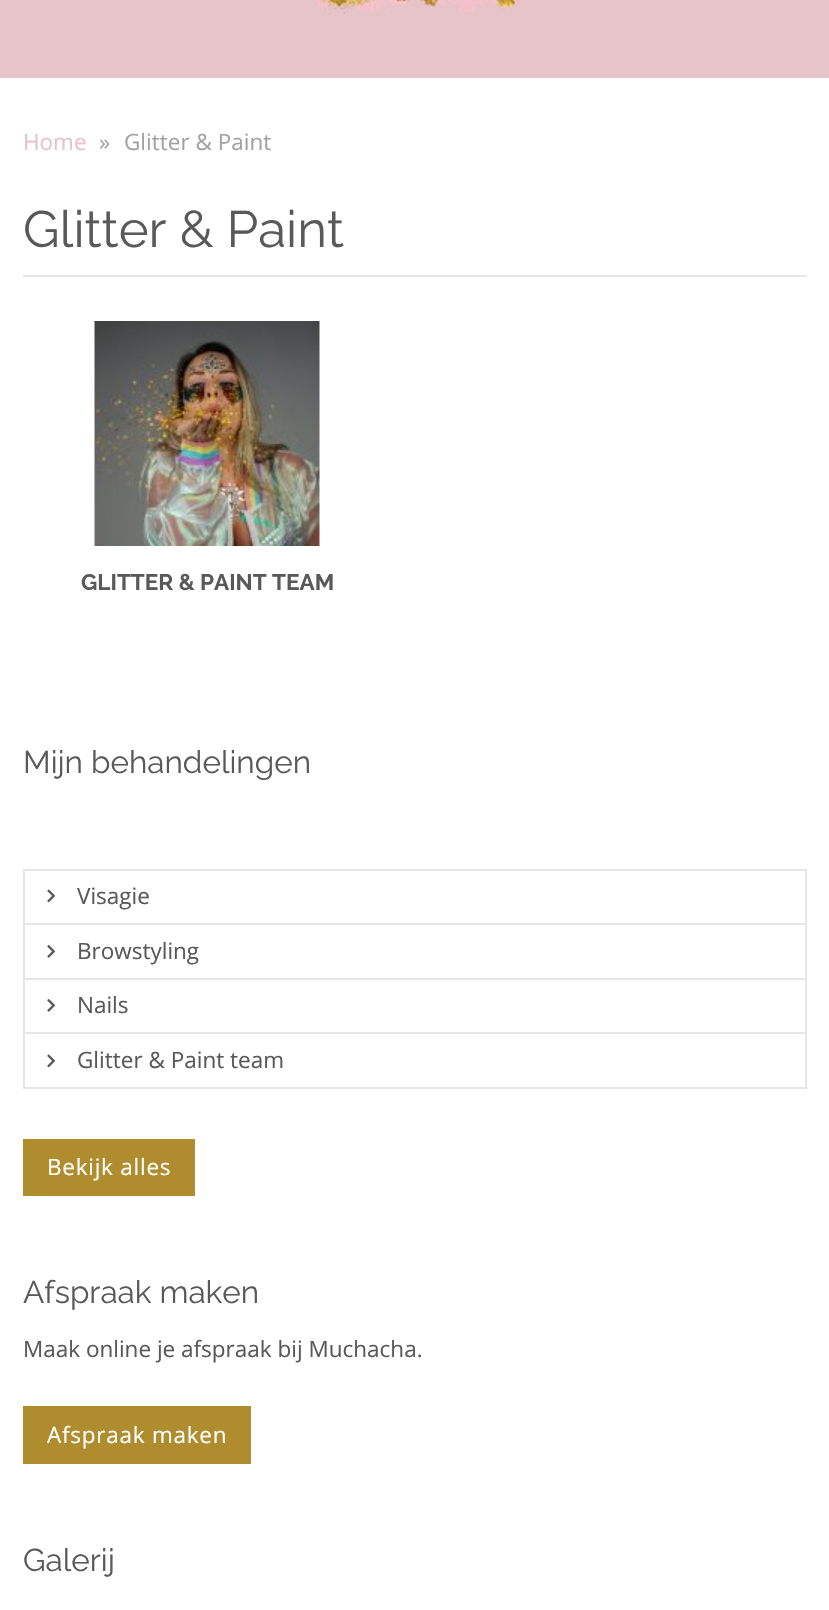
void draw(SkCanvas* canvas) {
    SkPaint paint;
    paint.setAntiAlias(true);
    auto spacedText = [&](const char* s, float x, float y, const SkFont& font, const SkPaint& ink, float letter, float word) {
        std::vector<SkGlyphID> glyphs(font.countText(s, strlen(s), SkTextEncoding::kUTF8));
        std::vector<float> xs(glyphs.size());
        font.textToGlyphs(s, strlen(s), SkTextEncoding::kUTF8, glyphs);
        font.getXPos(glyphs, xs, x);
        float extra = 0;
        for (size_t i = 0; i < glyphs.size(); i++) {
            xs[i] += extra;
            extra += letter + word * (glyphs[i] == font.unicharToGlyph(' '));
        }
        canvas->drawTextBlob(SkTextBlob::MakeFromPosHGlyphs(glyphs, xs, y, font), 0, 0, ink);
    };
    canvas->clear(0xFFFFFFFF);
    paint.setColor(0xFFE7C3CA);
    canvas->drawRect(SkRect::MakeXYWH(0, 0, 829, 78), paint);
    canvas->drawImageRect(SkImages::DeferredFromEncodedData(SkData::MakeFromFileName("img1.png")), SkRect::MakeXYWH(315, 0, 201, 15), SkSamplingOptions());
    SkFont font1(fontMgr->matchFamilyStyle("Open Sans", SkFontStyle::Normal()), 22.5f);
    font1.setSubpixel(true);
    canvas->drawString("Home", 23, 150, font1, paint);
    paint.setColor(0xFFA2A2A2);
    canvas->drawString("»", 99, 150, font1, paint);
    canvas->drawString("Glitter & Paint", 124, 150, font1, paint);
    paint.setColor(0xFFE6E6E6);
    canvas->drawRect(SkRect::MakeXYWH(23, 275, 784, 2), paint);
    SkFont font2(fontMgr->matchFamilyStyle("Raleway", SkFontStyle::Normal()), 51);
    font2.setSubpixel(true);
    paint.setColor(0xFF595959);
    canvas->drawString("Glitter & Paint", 23, 247, font2, paint);
    canvas->drawImageRect(SkImages::DeferredFromEncodedData(SkData::MakeFromFileName("img2.png")), SkRect::MakeXYWH(94, 321, 226, 225), SkSamplingOptions());
    SkFont font3(fontMgr->matchFamilyStyle("Raleway", SkFontStyle::Bold()), 22.5f);
    font3.setSubpixel(true);
    canvas->drawString("GLITTER & PAINT TEAM", 81, 590, font3, paint);
    SkFont font4(fontMgr->matchFamilyStyle("Raleway", SkFontStyle::Normal()), 31.5f);
    font4.setSubpixel(true);
    canvas->drawString("Mijn behandelingen", 23, 773, font4, paint);
    paint.setStyle(SkPaint::kStroke_Style);
    paint.setStrokeWidth(2);
    paint.setColor(0xFFE6E6E6);
    canvas->drawRect(SkRect::MakeXYWH(24, 870, 782, 218), paint);
    paint.setStyle(SkPaint::kFill_Style);
    canvas->drawRect(SkRect::MakeXYWH(24, 923, 782, 2), paint);
    canvas->drawImageRect(SkImages::DeferredFromEncodedData(SkData::MakeFromFileName("img3.png")), SkRect::MakeXYWH(47, 889, 8, 14), SkSamplingOptions());
    paint.setColor(0xFF595959);
    canvas->drawString("Visagie", 77, 904, font1, paint);
    paint.setColor(0xFFE6E6E6);
    canvas->drawRect(SkRect::MakeXYWH(24, 978, 782, 2), paint);
    canvas->drawImageRect(SkImages::DeferredFromEncodedData(SkData::MakeFromFileName("img4.png")), SkRect::MakeXYWH(47, 945, 8, 13), SkSamplingOptions());
    paint.setColor(0xFF595959);
    canvas->drawString("Browstyling", 77, 959, font1, paint);
    paint.setColor(0xFFE6E6E6);
    canvas->drawRect(SkRect::MakeXYWH(24, 1032, 782, 2), paint);
    canvas->drawImageRect(SkImages::DeferredFromEncodedData(SkData::MakeFromFileName("img4.png")), SkRect::MakeXYWH(47, 999, 8, 13), SkSamplingOptions());
    paint.setColor(0xFF595959);
    canvas->drawString("Nails", 77, 1013, font1, paint);
    canvas->drawImageRect(SkImages::DeferredFromEncodedData(SkData::MakeFromFileName("img3.png")), SkRect::MakeXYWH(47, 1054, 8, 14), SkSamplingOptions());
    canvas->drawString("Glitter & Paint team", 77, 1068, font1, paint);
    paint.setColor(0xFFAF8C2D);
    canvas->drawRect(SkRect::MakeXYWH(23, 1139, 172, 57), paint);
    paint.setColor(0xFFFFFFFF);
    spacedText("Bekijk alles", 47, 1175, font1, paint, 0.75f, 0);
    paint.setColor(0xFF595959);
    canvas->drawString("Afspraak maken", 23, 1303, font4, paint);
    canvas->drawString("Maak online je afspraak bij Muchacha.", 23, 1357, font1, paint);
    paint.setColor(0xFFAF8C2D);
    canvas->drawRect(SkRect::MakeXYWH(23, 1406, 228, 58), paint);
    paint.setColor(0xFFFFFFFF);
    spacedText("Afspraak maken", 47, 1443, font1, paint, 0.75f, 0);
    paint.setColor(0xFF595959);
    canvas->drawString("Galerij", 23, 1571, font4, paint);
}
